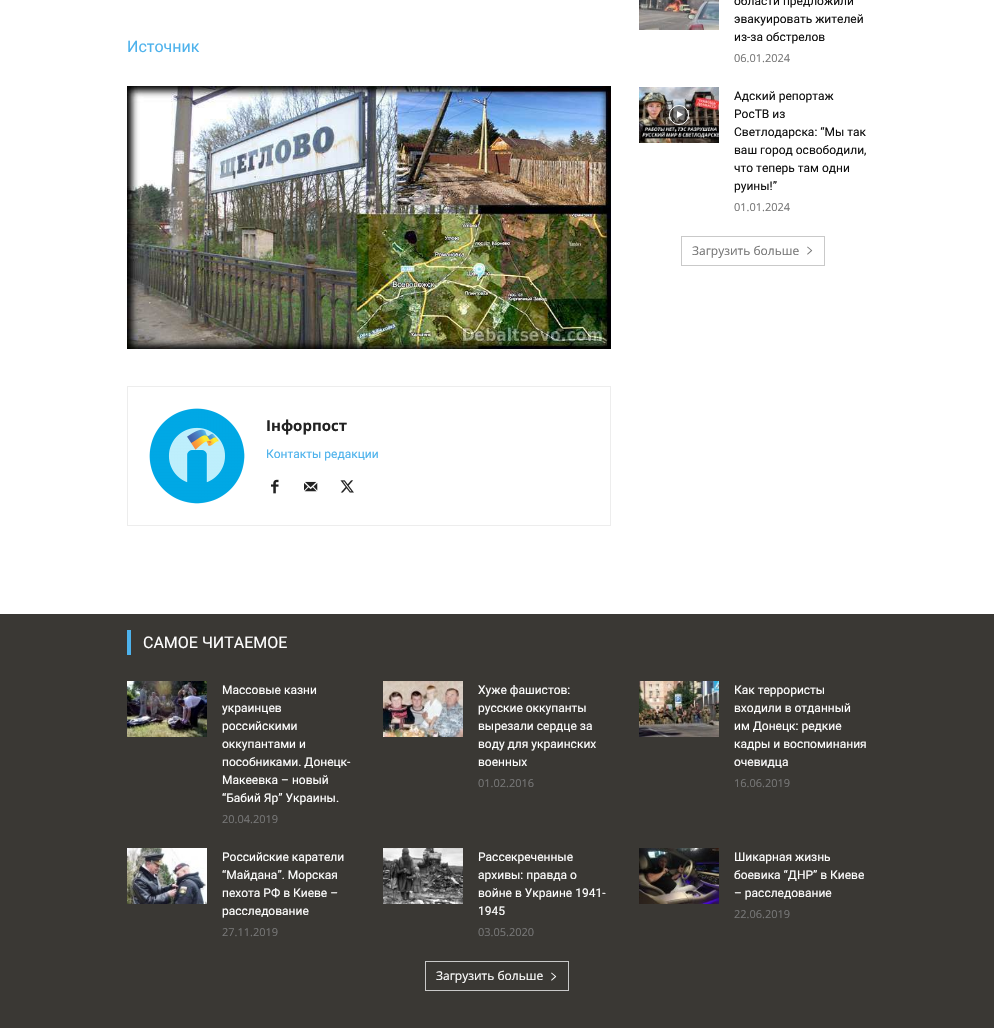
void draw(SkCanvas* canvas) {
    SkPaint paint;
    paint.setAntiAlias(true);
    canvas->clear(0xFFFFFFFF);
    SkFont font1(fontMgr->matchFamilyStyle("Roboto", SkFontStyle::Normal()), 16);
    font1.setSubpixel(true);
    paint.setColor(0xFF4DB2EC);
    canvas->drawString("Источник", 127, 52, font1, paint);
    canvas->drawImageRect(SkImages::DeferredFromEncodedData(SkData::MakeFromFileName("img1.png")), SkRect::MakeXYWH(127, 86, 484, 263), SkSamplingOptions());
    paint.setStyle(SkPaint::kStroke_Style);
    paint.setStrokeWidth(1);
    paint.setColor(0xFFEDEDED);
    canvas->drawRect(SkRect::MakeXYWH(127.5f, 386.5f, 483, 139), paint);
    canvas->drawImageRect(SkImages::DeferredFromEncodedData(SkData::MakeFromFileName("img2.png")), SkRect::MakeXYWH(149, 408, 96, 96), SkSamplingOptions());
    SkFont font2(fontMgr->matchFamilyStyle("Open Sans", SkFontStyle::Bold()), 15);
    font2.setSubpixel(true);
    paint.setStyle(SkPaint::kFill_Style);
    paint.setColor(0xFF222222);
    canvas->drawString("Інфорпост", 266, 431, font2, paint);
    SkFont font3(fontMgr->matchFamilyStyle("Roboto", SkFontStyle::Normal()), 12);
    font3.setSubpixel(true);
    paint.setColor(0xFF4DB2EC);
    canvas->drawString("Контакты редакции", 266, 458, font3, paint);
    canvas->drawImageRect(SkImages::DeferredFromEncodedData(SkData::MakeFromFileName("img3.png")), SkRect::MakeXYWH(271, 479, 8, 15), SkSamplingOptions());
    canvas->drawImageRect(SkImages::DeferredFromEncodedData(SkData::MakeFromFileName("img4.png")), SkRect::MakeXYWH(304, 481, 14, 11), SkSamplingOptions());
    canvas->drawImageRect(SkImages::DeferredFromEncodedData(SkData::MakeFromFileName("img5.png")), SkRect::MakeXYWH(340, 480, 14, 13), SkSamplingOptions());
    canvas->drawImageRect(SkImages::DeferredFromEncodedData(SkData::MakeFromFileName("img6.png")), SkRect::MakeXYWH(639, 0, 80, 30), SkSamplingOptions());
    paint.setColor(0xFF111111);
    canvas->drawString("области предложили", 734, 5, font3, paint);
    canvas->drawString("эвакуировать жителей", 734, 23, font3, paint);
    canvas->drawString("из-за обстрелов", 734, 41, font3, paint);
    SkFont font4(fontMgr->matchFamilyStyle("Open Sans", SkFontStyle::Normal()), 11);
    font4.setSubpixel(true);
    paint.setColor(0xFF767676);
    canvas->drawString("06.01.2024", 734, 62, font4, paint);
    canvas->drawImageRect(SkImages::DeferredFromEncodedData(SkData::MakeFromFileName("img7.png")), SkRect::MakeXYWH(639, 87, 80, 56), SkSamplingOptions());
    canvas->save();
    canvas->clipPath(SkPathBuilder(SkPathFillType::kEvenOdd).moveTo(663, 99).lineTo(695, 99).lineTo(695, 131).lineTo(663, 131).close().moveTo(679, 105).cubicTo(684.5f, 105, 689, 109.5f, 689, 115).cubicTo(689, 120.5f, 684.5f, 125, 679, 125).cubicTo(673.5f, 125, 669, 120.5f, 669, 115).cubicTo(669, 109.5f, 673.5f, 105, 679, 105).close().detach(), true);
    paint.setColor(0x66000000);
    paint.setMaskFilter(SkMaskFilter::MakeBlur(kNormal_SkBlurStyle, 1.5f));
    canvas->drawRoundRect(SkRect::MakeXYWH(669, 105, 20, 20), 10, 10, paint);
    paint.setMaskFilter(nullptr);
    canvas->restore();
    paint.setColor(0x7A000000);
    canvas->drawCircle(679, 115, 9.5f, paint);
    paint.setStyle(SkPaint::kStroke_Style);
    paint.setColor(0xFFFFFFFF);
    canvas->drawCircle(679, 115, 9.5f, paint);
    paint.setStyle(SkPaint::kFill_Style);
    canvas->drawPath(SkPathBuilder().moveTo(677, 111).lineTo(677, 118).lineTo(683, 114.5f).close().detach(), paint);
    paint.setColor(0xFF111111);
    canvas->drawString("Адский репортаж", 734, 100, font3, paint);
    canvas->drawString("РосТВ из", 734, 118, font3, paint);
    canvas->drawString("Светлодарска: “Мы так", 734, 136, font3, paint);
    canvas->drawString("ваш город освободили,", 734, 154, font3, paint);
    canvas->drawString("что теперь там одни", 734, 172, font3, paint);
    canvas->drawString("руины!”", 734, 190, font3, paint);
    paint.setColor(0xFF767676);
    canvas->drawString("01.01.2024", 734, 211, font4, paint);
    paint.setStyle(SkPaint::kStroke_Style);
    paint.setColor(0xFFC9C9C9);
    canvas->drawRect(SkRect::MakeXYWH(681.5f, 236.5f, 143, 29), paint);
    SkFont font5(fontMgr->matchFamilyStyle("Open Sans", SkFontStyle::Normal()), 12);
    font5.setSubpixel(true);
    paint.setStyle(SkPaint::kFill_Style);
    paint.setColor(0xFF767676);
    canvas->drawString("Загрузить больше", 692, 255, font5, paint);
    canvas->drawImageRect(SkImages::DeferredFromEncodedData(SkData::MakeFromFileName("img8.png")), SkRect::MakeXYWH(807, 246, 6, 9), SkSamplingOptions());
    paint.setColor(0xFF3A3834);
    canvas->drawRect(SkRect::MakeXYWH(0, 614, 994, 414), paint);
    paint.setColor(0xFF4DB2EC);
    canvas->drawRect(SkRect::MakeXYWH(127, 630, 4, 25), paint);
    paint.setColor(0xFFFFFFFF);
    canvas->drawString("САМОЕ ЧИТАЕМОЕ", 143, 648, font1, paint);
    canvas->drawImageRect(SkImages::DeferredFromEncodedData(SkData::MakeFromFileName("img9.png")), SkRect::MakeXYWH(127, 681, 80, 56), SkSamplingOptions());
    canvas->drawString("Массовые казни", 222, 694, font3, paint);
    canvas->drawString("украинцев", 222, 712, font3, paint);
    canvas->drawString("российскими", 222, 730, font3, paint);
    canvas->drawString("оккупантами и", 222, 748, font3, paint);
    canvas->drawString("пособниками. Донецк-", 222, 766, font3, paint);
    canvas->drawString("Макеевка – новый", 222, 784, font3, paint);
    canvas->drawString("“Бабий Яр” Украины.", 222, 802, font3, paint);
    paint.setColor(0xFF767676);
    canvas->drawString("20.04.2019", 222, 823, font4, paint);
    canvas->drawImageRect(SkImages::DeferredFromEncodedData(SkData::MakeFromFileName("img10.png")), SkRect::MakeXYWH(383, 681, 80, 56), SkSamplingOptions());
    paint.setColor(0xFFFFFFFF);
    canvas->drawString("Хуже фашистов:", 478, 694, font3, paint);
    canvas->drawString("русские оккупанты", 478, 712, font3, paint);
    canvas->drawString("вырезали сердце за", 478, 730, font3, paint);
    canvas->drawString("воду для украинских", 478, 748, font3, paint);
    canvas->drawString("военных", 478, 766, font3, paint);
    paint.setColor(0xFF767676);
    canvas->drawString("01.02.2016", 478, 787, font4, paint);
    canvas->drawImageRect(SkImages::DeferredFromEncodedData(SkData::MakeFromFileName("img11.png")), SkRect::MakeXYWH(639, 681, 80, 56), SkSamplingOptions());
    paint.setColor(0xFFFFFFFF);
    canvas->drawString("Как террористы", 734, 694, font3, paint);
    canvas->drawString("входили в отданный", 734, 712, font3, paint);
    canvas->drawString("им Донецк: редкие", 734, 730, font3, paint);
    canvas->drawString("кадры и воспоминания", 734, 748, font3, paint);
    canvas->drawString("очевидца", 734, 766, font3, paint);
    paint.setColor(0xFF767676);
    canvas->drawString("16.06.2019", 734, 787, font4, paint);
    canvas->drawImageRect(SkImages::DeferredFromEncodedData(SkData::MakeFromFileName("img12.png")), SkRect::MakeXYWH(127, 848, 80, 56), SkSamplingOptions());
    paint.setColor(0xFFFFFFFF);
    canvas->drawString("Российские каратели", 222, 861, font3, paint);
    canvas->drawString("“Майдана”. Морская", 222, 879, font3, paint);
    canvas->drawString("пехота РФ в Киеве –", 222, 897, font3, paint);
    canvas->drawString("расследование", 222, 915, font3, paint);
    paint.setColor(0xFF767676);
    canvas->drawString("27.11.2019", 222, 936, font4, paint);
    canvas->drawImageRect(SkImages::DeferredFromEncodedData(SkData::MakeFromFileName("img13.png")), SkRect::MakeXYWH(383, 848, 80, 56), SkSamplingOptions());
    paint.setColor(0xFFFFFFFF);
    canvas->drawString("Рассекреченные", 478, 861, font3, paint);
    canvas->drawString("архивы: правда о", 478, 879, font3, paint);
    canvas->drawString("войне в Украине 1941-", 478, 897, font3, paint);
    canvas->drawString("1945", 478, 915, font3, paint);
    paint.setColor(0xFF767676);
    canvas->drawString("03.05.2020", 478, 936, font4, paint);
    canvas->drawImageRect(SkImages::DeferredFromEncodedData(SkData::MakeFromFileName("img14.png")), SkRect::MakeXYWH(639, 848, 80, 56), SkSamplingOptions());
    paint.setColor(0xFFFFFFFF);
    canvas->drawString("Шикарная жизнь", 734, 861, font3, paint);
    canvas->drawString("боевика “ДНР” в Киеве", 734, 879, font3, paint);
    canvas->drawString("– расследование", 734, 897, font3, paint);
    paint.setColor(0xFF767676);
    canvas->drawString("22.06.2019", 734, 918, font4, paint);
    paint.setStyle(SkPaint::kStroke_Style);
    paint.setColor(0xFFC9C9C9);
    canvas->drawRect(SkRect::MakeXYWH(425.5f, 961.5f, 143, 29), paint);
    paint.setStyle(SkPaint::kFill_Style);
    paint.setColor(0xFFFFFFFF);
    canvas->drawString("Загрузить больше", 436, 980, font5, paint);
    canvas->drawImageRect(SkImages::DeferredFromEncodedData(SkData::MakeFromFileName("img15.png")), SkRect::MakeXYWH(551, 972, 6, 9), SkSamplingOptions());
}
